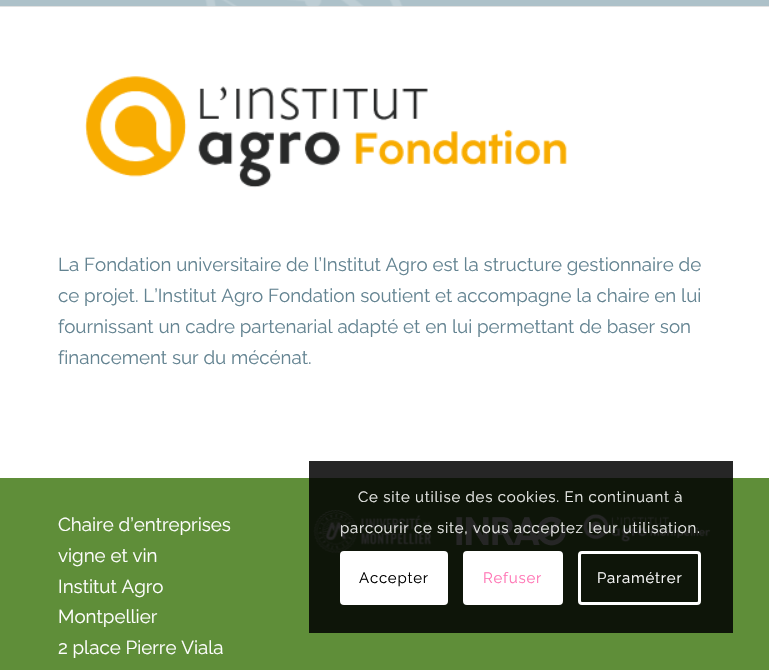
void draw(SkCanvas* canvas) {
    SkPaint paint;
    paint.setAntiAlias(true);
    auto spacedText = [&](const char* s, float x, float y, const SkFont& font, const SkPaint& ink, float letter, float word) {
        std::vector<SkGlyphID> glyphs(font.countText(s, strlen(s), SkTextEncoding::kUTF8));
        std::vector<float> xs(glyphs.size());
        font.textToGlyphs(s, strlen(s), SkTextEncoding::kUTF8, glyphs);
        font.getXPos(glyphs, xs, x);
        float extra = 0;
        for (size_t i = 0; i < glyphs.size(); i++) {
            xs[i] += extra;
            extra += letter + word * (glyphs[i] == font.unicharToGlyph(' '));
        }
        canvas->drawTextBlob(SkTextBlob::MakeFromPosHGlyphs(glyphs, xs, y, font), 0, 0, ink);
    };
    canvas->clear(0xFFFFFFFF);
    paint.setColor(0xFF262626);
    canvas->drawRect(SkRect::MakeXYWH(309, 461, 424, 17), paint);
    paint.setColor(0xFFADC1C9);
    canvas->drawRect(SkRect::MakeXYWH(0, 0, 769, 6), paint);
    canvas->drawImageRect(SkImages::DeferredFromEncodedData(SkData::MakeFromFileName("img1.png")), SkRect::MakeXYWH(205, 0, 198, 6), SkSamplingOptions());
    paint.setColor(0xFFE1E1E1);
    canvas->drawRect(SkRect::MakeXYWH(0, 6, 769, 1), paint);
    canvas->drawImageRect(SkImages::DeferredFromEncodedData(SkData::MakeFromFileName("img2.png")), SkRect::MakeXYWH(85, 76, 482, 112), SkSamplingOptions());
    SkFont font1(fontMgr->matchFamilyStyle("Raleway", SkFontStyle::Normal()), 18.75f);
    font1.setSubpixel(true);
    paint.setColor(0xFF638391);
    canvas->drawString("La Fondation universitaire de l’Institut Agro est la structure gestionnaire de", 58, 271, font1, paint);
    canvas->drawString("ce projet. L’Institut Agro Fondation soutient et accompagne la chaire en lui", 58, 302, font1, paint);
    canvas->drawString("fournissant un cadre partenarial adapté et en lui permettant de baser son", 58, 333, font1, paint);
    canvas->drawString("financement sur du mécénat.", 58, 364, font1, paint);
    paint.setColor(0xFF5F8E39);
    canvas->drawRect(SkRect::MakeXYWH(0, 478, 769, 192), paint);
    paint.setColor(0xFF0E1509);
    canvas->drawRect(SkRect::MakeXYWH(309, 478, 424, 155), paint);
    paint.setColor(0xFFFFFFFF);
    canvas->drawString("Chaire d’entreprises", 58, 531, font1, paint);
    canvas->drawString("vigne et vin", 58, 562, font1, paint);
    canvas->drawString("Institut Agro", 58, 593, font1, paint);
    canvas->drawString("Montpellier", 58, 623, font1, paint);
    canvas->drawString("2 place Pierre Viala", 58, 654, font1, paint);
    canvas->drawImageRect(SkImages::DeferredFromEncodedData(SkData::MakeFromFileName("img3.png")), SkRect::MakeXYWH(313, 510, 119, 43), SkSamplingOptions());
    canvas->drawImageRect(SkImages::DeferredFromEncodedData(SkData::MakeFromFileName("img4.png")), SkRect::MakeXYWH(456, 516, 110, 30), SkSamplingOptions());
    canvas->drawImageRect(SkImages::DeferredFromEncodedData(SkData::MakeFromFileName("img5.png")), SkRect::MakeXYWH(583, 514, 128, 28), SkSamplingOptions());
    SkFont font2(fontMgr->matchFamilyStyle("Raleway", SkFontStyle::Normal()), 15);
    font2.setSubpixel(true);
    paint.setColor(0xFFE7E8E6);
    spacedText("Ce site utilise des cookies. En continuant à", 358, 502, font2, paint, 0.75f, 0);
    spacedText("parcourir ce site, vous acceptez leur utilisation.", 340, 533, font2, paint, 0.75f, 0);
    paint.setColor(0xFFFFFFFF);
    canvas->drawRoundRect(SkRect::MakeXYWH(340, 551, 108, 54), 4, 4, paint);
    paint.setColor(0xFF000000);
    spacedText("Accepter", 359, 583, font2, paint, 0.75f, 0);
    paint.setColor(0xFFFFFFFF);
    canvas->drawRoundRect(SkRect::MakeXYWH(464.5f, 552.5f, 97, 51), 2.5f, 2.5f, paint);
    paint.setStyle(SkPaint::kStroke_Style);
    paint.setStrokeWidth(3);
    canvas->drawRoundRect(SkRect::MakeXYWH(464.5f, 552.5f, 97, 51), 2.5f, 2.5f, paint);
    paint.setStyle(SkPaint::kFill_Style);
    paint.setColor(0xFFFF75B5);
    spacedText("Refuser", 483, 583, font2, paint, 0.75f, 0);
    paint.setStyle(SkPaint::kStroke_Style);
    paint.setColor(0xFFFFFFFF);
    canvas->drawRoundRect(SkRect::MakeXYWH(579.5f, 552.5f, 120, 51), 2.5f, 2.5f, paint);
    paint.setStyle(SkPaint::kFill_Style);
    spacedText("Paramétrer", 597, 583, font2, paint, 0.75f, 0);
}
